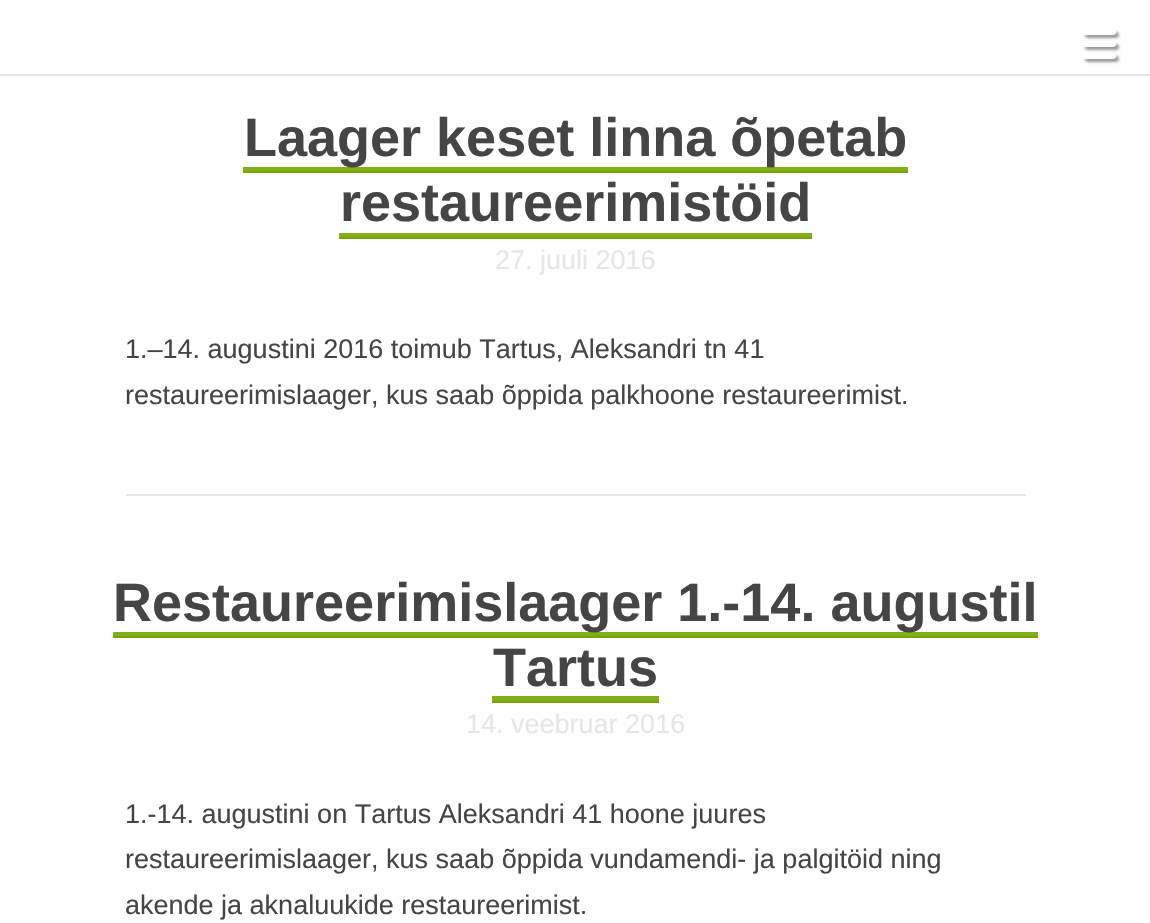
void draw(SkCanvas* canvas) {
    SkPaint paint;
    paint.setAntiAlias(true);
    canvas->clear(0xFFFFFFFF);
    paint.setColor(0xFFE6E6E6);
    canvas->drawRect(SkRect::MakeXYWH(0, 74, 1150, 2), paint);
    paint.setColor(0x66000000);
    paint.setMaskFilter(SkMaskFilter::MakeBlur(kNormal_SkBlurStyle, 1.5f));
    canvas->drawRoundRect(SkRect::MakeXYWH(1085, 32, 34, 6), 3, 3, paint);
    paint.setMaskFilter(nullptr);
    paint.setColor(0xFFFFFFFF);
    canvas->drawRoundRect(SkRect::MakeXYWH(1082, 29, 34, 6), 3, 3, paint);
    paint.setColor(0x66000000);
    paint.setMaskFilter(SkMaskFilter::MakeBlur(kNormal_SkBlurStyle, 1.5f));
    canvas->drawRoundRect(SkRect::MakeXYWH(1085, 44, 34, 6), 3, 3, paint);
    paint.setMaskFilter(nullptr);
    paint.setColor(0xFFFFFFFF);
    canvas->drawRoundRect(SkRect::MakeXYWH(1082, 41, 34, 6), 3, 3, paint);
    paint.setColor(0x66000000);
    paint.setMaskFilter(SkMaskFilter::MakeBlur(kNormal_SkBlurStyle, 1.5f));
    canvas->drawRoundRect(SkRect::MakeXYWH(1085, 56, 34, 6), 3, 3, paint);
    paint.setMaskFilter(nullptr);
    paint.setColor(0xFFFFFFFF);
    canvas->drawRoundRect(SkRect::MakeXYWH(1082, 53, 34, 6), 3, 3, paint);
    paint.setColor(0xFF85AF1A);
    canvas->drawRect(SkRect::MakeXYWH(243, 167, 665, 4), paint);
    SkFont font1(fontMgr->matchFamilyStyle("Liberation Sans", SkFontStyle::Bold()), 54);
    font1.setSubpixel(true);
    paint.setColor(0xFF454545);
    canvas->drawString("Laager keset linna õpetab", 244, 156, font1, paint);
    canvas->drawString("restaureerimistöid", 340, 221, font1, paint);
    paint.setColor(0xFF77A600);
    canvas->drawRect(SkRect::MakeXYWH(243, 171, 665, 2), paint);
    paint.setColor(0xFF85AF1A);
    canvas->drawRect(SkRect::MakeXYWH(339, 233, 473, 4), paint);
    paint.setColor(0xFF77A600);
    canvas->drawRect(SkRect::MakeXYWH(339, 237, 473, 2), paint);
    SkFont font2(fontMgr->matchFamilyStyle("Liberation Sans", SkFontStyle::Normal()), 27);
    font2.setSubpixel(true);
    paint.setColor(0xFFE6E6E6);
    canvas->drawString("27. juuli 2016", 495, 269, font2, paint);
    canvas->drawRect(SkRect::MakeXYWH(126, 494, 900, 2), paint);
    paint.setColor(0xFF454545);
    canvas->drawString("1.–14. augustini 2016 toimub Tartus, Aleksandri tn 41", 125, 358, font2, paint);
    canvas->drawString("restaureerimislaager, kus saab õppida palkhoone restaureerimist.", 125, 404, font2, paint);
    paint.setColor(0xFF85AF1A);
    canvas->drawRect(SkRect::MakeXYWH(113, 632, 925, 4), paint);
    paint.setColor(0xFF454545);
    canvas->drawString("Restaureerimislaager 1.-14. augustil", 113, 621, font1, paint);
    paint.setColor(0xFF77A600);
    canvas->drawRect(SkRect::MakeXYWH(113, 636, 925, 2), paint);
    paint.setColor(0xFF454545);
    canvas->drawString("Tartus", 493, 686, font1, paint);
    paint.setColor(0xFF85AF1A);
    canvas->drawRect(SkRect::MakeXYWH(492, 696, 167, 5), paint);
    paint.setColor(0xFF77A600);
    canvas->drawRect(SkRect::MakeXYWH(492, 701, 167, 2), paint);
    paint.setColor(0xFFE6E6E6);
    canvas->drawString("14. veebruar 2016", 466, 733, font2, paint);
    paint.setColor(0xFF454545);
    canvas->drawString("1.-14. augustini on Tartus Aleksandri 41 hoone juures", 125, 823, font2, paint);
    canvas->drawString("restaureerimislaager, kus saab õppida vundamendi- ja palgitöid ning", 125, 868, font2, paint);
    canvas->drawString("akende ja aknaluukide restaureerimist.", 125, 914, font2, paint);
}
